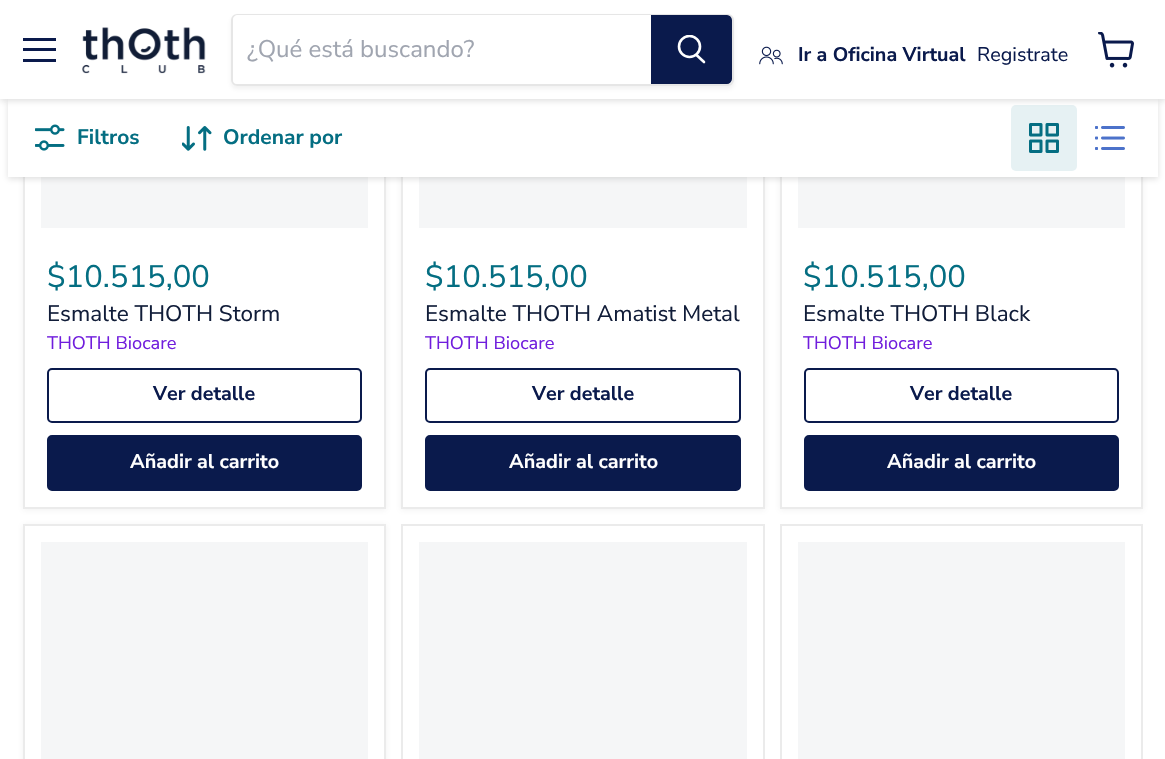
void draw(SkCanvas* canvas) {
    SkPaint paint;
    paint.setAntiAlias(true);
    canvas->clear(0xFFFFFFFF);
    paint.setColor(0x1C808080);
    paint.setMaskFilter(SkMaskFilter::MakeBlur(kNormal_SkBlurStyle, 3));
    canvas->drawRect(SkRect::MakeXYWH(23, -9, 363, 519), paint);
    paint.setMaskFilter(nullptr);
    paint.setColor(0xFFFFFFFF);
    canvas->drawRect(SkRect::MakeXYWH(25, 177, 359, 330), paint);
    paint.setStyle(SkPaint::kStroke_Style);
    paint.setStrokeWidth(2);
    paint.setColor(0xFFEBEBEB);
    canvas->drawRect(SkRect::MakeXYWH(24, -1, 361, 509), paint);
    paint.setStyle(SkPaint::kFill_Style);
    paint.setColor(0xFFF5F6F7);
    canvas->drawRect(SkRect::MakeXYWH(41, 177, 327, 51), paint);
    paint.setColor(0x1C808080);
    paint.setMaskFilter(SkMaskFilter::MakeBlur(kNormal_SkBlurStyle, 3));
    canvas->drawRect(SkRect::MakeXYWH(401, -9, 364, 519), paint);
    paint.setMaskFilter(nullptr);
    paint.setColor(0xFFFFFFFF);
    canvas->drawRect(SkRect::MakeXYWH(403, 177, 360, 330), paint);
    paint.setStyle(SkPaint::kStroke_Style);
    paint.setColor(0xFFEBEBEB);
    canvas->drawRect(SkRect::MakeXYWH(402, -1, 362, 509), paint);
    paint.setStyle(SkPaint::kFill_Style);
    paint.setColor(0xFFF5F6F7);
    canvas->drawRect(SkRect::MakeXYWH(419, 177, 328, 51), paint);
    paint.setColor(0x1C808080);
    paint.setMaskFilter(SkMaskFilter::MakeBlur(kNormal_SkBlurStyle, 3));
    canvas->drawRect(SkRect::MakeXYWH(780, -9, 363, 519), paint);
    paint.setMaskFilter(nullptr);
    paint.setColor(0xFFFFFFFF);
    canvas->drawRect(SkRect::MakeXYWH(782, 177, 359, 330), paint);
    paint.setStyle(SkPaint::kStroke_Style);
    paint.setColor(0xFFEBEBEB);
    canvas->drawRect(SkRect::MakeXYWH(781, -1, 361, 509), paint);
    paint.setStyle(SkPaint::kFill_Style);
    paint.setColor(0xFFF5F6F7);
    canvas->drawRect(SkRect::MakeXYWH(798, 177, 327, 51), paint);
    paint.setColor(0x40808080);
    paint.setMaskFilter(SkMaskFilter::MakeBlur(kNormal_SkBlurStyle, 3));
    canvas->drawRect(SkRect::MakeXYWH(8, 101, 1150, 78), paint);
    paint.setMaskFilter(nullptr);
    paint.setColor(0xFFFFFFFF);
    canvas->drawRect(SkRect::MakeXYWH(8, 99, 1150, 78), paint);
    paint.setColor(0xFFE6F1F3);
    canvas->drawRoundRect(SkRect::MakeXYWH(1011, 105, 66, 66), 5, 5, paint);
    paint.setColor(0x40808080);
    paint.setMaskFilter(SkMaskFilter::MakeBlur(kNormal_SkBlurStyle, 3));
    canvas->drawRect(SkRect::MakeXYWH(0, 2, 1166, 99), paint);
    paint.setMaskFilter(nullptr);
    paint.setColor(0xFFFFFFFF);
    canvas->drawRect(SkRect::MakeXYWH(0, 0, 1165, 99), paint);
    paint.setColor(0xFF0A1A4C);
    canvas->drawRect(SkRect::MakeXYWH(23, 38, 33, 3), paint);
    canvas->drawRect(SkRect::MakeXYWH(23, 48, 33, 3), paint);
    canvas->drawRect(SkRect::MakeXYWH(23, 59, 33, 3), paint);
    canvas->drawImageRect(SkImages::DeferredFromEncodedData(SkData::MakeFromFileName("img1.png")), SkRect::MakeXYWH(82, 27, 124, 47), SkSamplingOptions());
    canvas->save();
    canvas->clipPath(SkPathBuilder(SkPathFillType::kEvenOdd).moveTo(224, 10).lineTo(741, 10).lineTo(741, 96).lineTo(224, 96).close().moveTo(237, 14).lineTo(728, 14).cubicTo(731.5f, 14, 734, 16.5f, 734, 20).lineTo(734, 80).cubicTo(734, 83.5f, 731.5f, 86, 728, 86).lineTo(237, 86).cubicTo(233.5f, 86, 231, 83.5f, 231, 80).lineTo(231, 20).cubicTo(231, 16.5f, 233.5f, 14, 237, 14).close().detach(), true);
    paint.setColor(0x1C808080);
    paint.setMaskFilter(SkMaskFilter::MakeBlur(kNormal_SkBlurStyle, 2));
    canvas->drawRoundRect(SkRect::MakeXYWH(231, 17, 503, 72), 6, 6, paint);
    paint.setMaskFilter(nullptr);
    canvas->restore();
    paint.setStyle(SkPaint::kStroke_Style);
    paint.setColor(0x33808080);
    canvas->drawRoundRect(SkRect::MakeXYWH(232, 15, 501, 70), 5, 5, paint);
    paint.setStyle(SkPaint::kFill_Style);
    paint.setColor(0xFFFFFFFF);
    canvas->drawPath(SkPathBuilder().moveTo(238, 15).lineTo(651, 15).lineTo(651, 84).lineTo(238, 84).cubicTo(235, 84, 233, 82, 233, 79).lineTo(233, 20).cubicTo(233, 17, 235, 15, 238, 15).close().detach(), paint);
    SkFont font1(fontMgr->matchFamilyStyle("Nunito Sans", SkFontStyle::Normal()), 24);
    font1.setSubpixel(true);
    paint.setColor(0xFFA0A5B0);
    canvas->drawString("¿Qué está buscando?", 247, 57, font1, paint);
    paint.setColor(0xFF0A1A4C);
    canvas->drawPath(SkPathBuilder().moveTo(652, 16).lineTo(727, 16).cubicTo(729, 16, 731, 18, 731, 20).lineTo(731, 79).cubicTo(731, 81, 729, 83, 727, 83).lineTo(652, 83).close().detach(), paint);
    paint.setStyle(SkPaint::kStroke_Style);
    canvas->drawPath(SkPathBuilder().moveTo(652, 16).lineTo(727, 16).cubicTo(729, 16, 731, 18, 731, 20).lineTo(731, 79).cubicTo(731, 81, 729, 83, 727, 83).lineTo(652, 83).close().detach(), paint);
    paint.setStrokeWidth(2.6f);
    paint.setStrokeCap(SkPaint::kRound_Cap);
    paint.setColor(0xFFFFFFFF);
    canvas->drawPath(SkPathBuilder().moveTo(704, 62).lineTo(696.5f, 55).detach(), paint);
    canvas->save();
    canvas->clipRect(SkRect::MakeXYWH(677, 35, 30, 31));
    paint.setStrokeCap(SkPaint::kButt_Cap);
    canvas->drawCircle(689.5f, 46.5f, 10.5f, paint);
    canvas->restore();
    canvas->drawImageRect(SkImages::DeferredFromEncodedData(SkData::MakeFromFileName("img2.png")), SkRect::MakeXYWH(759, 46, 24, 19), SkSamplingOptions());
    SkFont font2(fontMgr->matchFamilyStyle("Nunito Sans", SkFontStyle::Bold()), 19.75f);
    font2.setSubpixel(true);
    paint.setStyle(SkPaint::kFill_Style);
    paint.setColor(0xFF0A1A4C);
    canvas->drawString("Ir a Oficina Virtual", 798, 61, font2, paint);
    SkFont font3(fontMgr->matchFamilyStyle("Nunito Sans", SkFontStyle::Normal()), 19.75f);
    font3.setSubpixel(true);
    canvas->drawString("Registrate", 977, 61, font3, paint);
    canvas->drawImageRect(SkImages::DeferredFromEncodedData(SkData::MakeFromFileName("img3.png")), SkRect::MakeXYWH(1098, 32, 36, 36), SkSamplingOptions());
    canvas->drawImageRect(SkImages::DeferredFromEncodedData(SkData::MakeFromFileName("img4.png")), SkRect::MakeXYWH(35, 124, 30, 27), SkSamplingOptions());
    SkFont font4(fontMgr->matchFamilyStyle("Nunito Sans", SkFontStyle::Bold()), 21);
    font4.setSubpixel(true);
    paint.setColor(0xFF046E82);
    canvas->drawString("Filtros", 77, 144, font4, paint);
    canvas->drawImageRect(SkImages::DeferredFromEncodedData(SkData::MakeFromFileName("img5.png")), SkRect::MakeXYWH(182, 126, 30, 25), SkSamplingOptions());
    canvas->drawString("Ordenar por", 223, 144, font4, paint);
    canvas->drawImageRect(SkImages::DeferredFromEncodedData(SkData::MakeFromFileName("img6.png")), SkRect::MakeXYWH(1029, 123, 30, 30), SkSamplingOptions());
    canvas->drawImageRect(SkImages::DeferredFromEncodedData(SkData::MakeFromFileName("img7.png")), SkRect::MakeXYWH(1095, 126, 30, 24), SkSamplingOptions());
    SkFont font5(fontMgr->matchFamilyStyle("Nunito Sans", SkFontStyle::Normal()), 31);
    font5.setSubpixel(true);
    canvas->drawString("$10.515,00", 47, 287, font5, paint);
    SkFont font6(fontMgr->matchFamilyStyle("Nunito Sans", SkFontStyle::Normal()), 22.5f);
    font6.setSubpixel(true);
    paint.setColor(0xFF111D39);
    canvas->drawString("Esmalte THOTH Storm", 47, 321, font6, paint);
    SkFont font7(fontMgr->matchFamilyStyle("Nunito Sans", SkFontStyle::Normal()), 18.25f);
    font7.setSubpixel(true);
    paint.setColor(0xFF701DDD);
    canvas->drawString("THOTH Biocare", 47, 349, font7, paint);
    paint.setStyle(SkPaint::kStroke_Style);
    paint.setStrokeWidth(2);
    paint.setColor(0xFF0A1A4C);
    canvas->drawRoundRect(SkRect::MakeXYWH(48, 369, 313, 53), 4, 4, paint);
    paint.setStyle(SkPaint::kFill_Style);
    canvas->drawString("Ver detalle", 153, 400, font2, paint);
    canvas->drawRoundRect(SkRect::MakeXYWH(48, 436, 313, 54), 4, 4, paint);
    paint.setStyle(SkPaint::kStroke_Style);
    canvas->drawRoundRect(SkRect::MakeXYWH(48, 436, 313, 54), 4, 4, paint);
    paint.setStyle(SkPaint::kFill_Style);
    paint.setColor(0xFFFFFFFF);
    canvas->drawString("Añadir al carrito", 130, 468, font2, paint);
    paint.setColor(0xFF046E82);
    canvas->drawString("$10.515,00", 425, 287, font5, paint);
    paint.setColor(0xFF111D39);
    canvas->drawString("Esmalte THOTH Amatist Metal", 425, 321, font6, paint);
    paint.setColor(0xFF701DDD);
    canvas->drawString("THOTH Biocare", 425, 349, font7, paint);
    paint.setStyle(SkPaint::kStroke_Style);
    paint.setColor(0xFF0A1A4C);
    canvas->drawRoundRect(SkRect::MakeXYWH(426, 369, 314, 53), 4, 4, paint);
    paint.setStyle(SkPaint::kFill_Style);
    canvas->drawString("Ver detalle", 532, 400, font2, paint);
    canvas->drawRoundRect(SkRect::MakeXYWH(426, 436, 314, 54), 4, 4, paint);
    paint.setStyle(SkPaint::kStroke_Style);
    canvas->drawRoundRect(SkRect::MakeXYWH(426, 436, 314, 54), 4, 4, paint);
    paint.setStyle(SkPaint::kFill_Style);
    paint.setColor(0xFFFFFFFF);
    canvas->drawString("Añadir al carrito", 509, 468, font2, paint);
    paint.setColor(0xFF046E82);
    canvas->drawString("$10.515,00", 803, 287, font5, paint);
    paint.setColor(0xFF111D39);
    canvas->drawString("Esmalte THOTH Black", 803, 321, font6, paint);
    paint.setColor(0xFF701DDD);
    canvas->drawString("THOTH Biocare", 803, 349, font7, paint);
    paint.setStyle(SkPaint::kStroke_Style);
    paint.setColor(0xFF0A1A4C);
    canvas->drawRoundRect(SkRect::MakeXYWH(805, 369, 313, 53), 4, 4, paint);
    paint.setStyle(SkPaint::kFill_Style);
    canvas->drawString("Ver detalle", 910, 400, font2, paint);
    canvas->drawRoundRect(SkRect::MakeXYWH(805, 436, 313, 54), 4, 4, paint);
    paint.setStyle(SkPaint::kStroke_Style);
    canvas->drawRoundRect(SkRect::MakeXYWH(805, 436, 313, 54), 4, 4, paint);
    paint.setStyle(SkPaint::kFill_Style);
    paint.setColor(0xFFFFFFFF);
    canvas->drawString("Añadir al carrito", 887, 468, font2, paint);
    paint.setColor(0x1C808080);
    paint.setMaskFilter(SkMaskFilter::MakeBlur(kNormal_SkBlurStyle, 3));
    canvas->drawRect(SkRect::MakeXYWH(23, 525, 363, 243), paint);
    paint.setMaskFilter(nullptr);
    paint.setColor(0xFFFFFFFF);
    canvas->drawRect(SkRect::MakeXYWH(24, 525, 361, 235), paint);
    paint.setStyle(SkPaint::kStroke_Style);
    paint.setColor(0xFFEBEBEB);
    canvas->drawRect(SkRect::MakeXYWH(24, 525, 361, 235), paint);
    paint.setStyle(SkPaint::kFill_Style);
    paint.setColor(0xFFF5F6F7);
    canvas->drawRect(SkRect::MakeXYWH(41, 542, 327, 217), paint);
    paint.setStyle(SkPaint::kStroke_Style);
    paint.setColor(0xFFEBEBEB);
    canvas->drawRect(SkRect::MakeXYWH(402, 525, 362, 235), paint);
    paint.setStyle(SkPaint::kFill_Style);
    paint.setColor(0xFFF5F6F7);
    canvas->drawRect(SkRect::MakeXYWH(419, 542, 328, 217), paint);
    paint.setStyle(SkPaint::kStroke_Style);
    paint.setColor(0xFFEBEBEB);
    canvas->drawRect(SkRect::MakeXYWH(781, 525, 361, 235), paint);
    paint.setStyle(SkPaint::kFill_Style);
    paint.setColor(0xFFF5F6F7);
    canvas->drawRect(SkRect::MakeXYWH(798, 542, 327, 217), paint);
}
